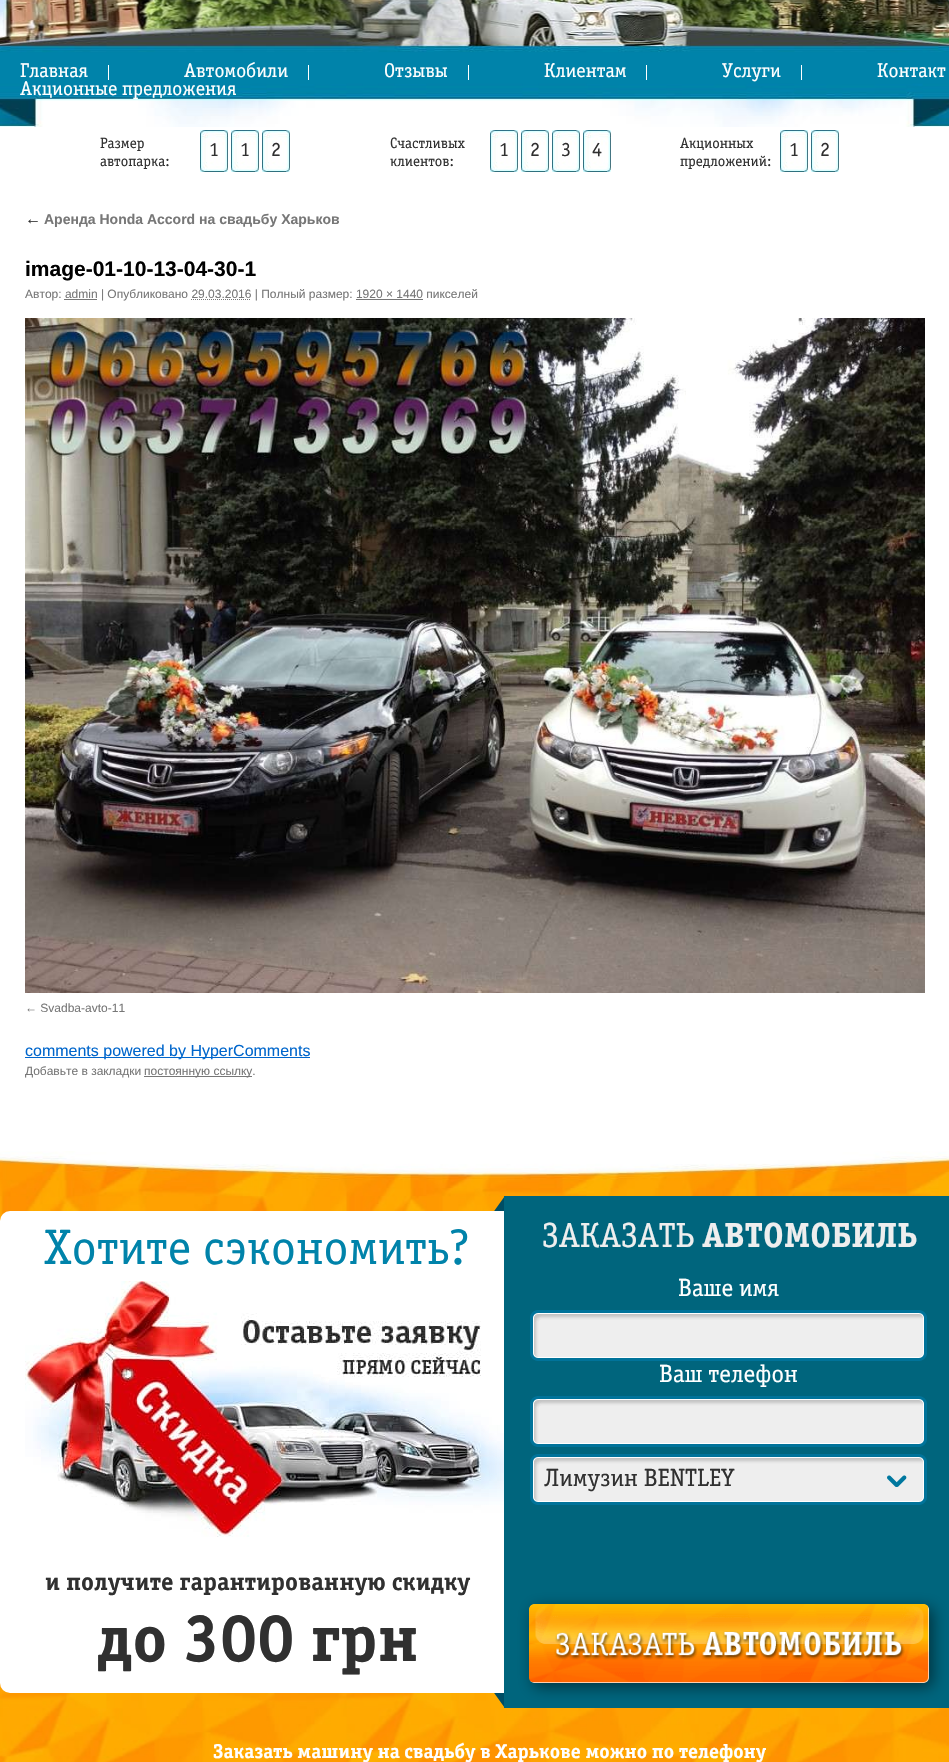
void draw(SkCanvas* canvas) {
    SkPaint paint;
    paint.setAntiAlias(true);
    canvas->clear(0xFFFFFFFF);
    canvas->drawImageRect(SkImages::DeferredFromEncodedData(SkData::MakeFromFileName("img1.png")), SkRect::MakeXYWH(0, 0, 949, 127), SkSamplingOptions());
    paint.setColor(0xFFFFFFFF);
    canvas->drawRect(SkRect::MakeXYWH(108, 65, 1, 15), paint);
    SkFont font1(fontMgr->matchFamilyStyle("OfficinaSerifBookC", SkFontStyle::Normal()), 20);
    font1.setSubpixel(true);
    canvas->drawString("Главная", 20, 77, font1, paint);
    canvas->drawRect(SkRect::MakeXYWH(308, 65, 1, 15), paint);
    canvas->drawString("Автомобили", 184, 77, font1, paint);
    canvas->drawRect(SkRect::MakeXYWH(468, 65, 1, 15), paint);
    canvas->drawString("Отзывы", 384, 77, font1, paint);
    canvas->drawRect(SkRect::MakeXYWH(646, 65, 1, 15), paint);
    canvas->drawString("Клиентам", 544, 77, font1, paint);
    canvas->drawRect(SkRect::MakeXYWH(801, 65, 1, 15), paint);
    canvas->drawString("Услуги", 722, 77, font1, paint);
    canvas->drawString("Контакт", 877, 77, font1, paint);
    canvas->drawString("Акционные предложения", 20, 95, font1, paint);
    SkFont font2(fontMgr->matchFamilyStyle("OfficinaSerifBookC", SkFontStyle::Normal()), 15);
    font2.setSubpixel(true);
    paint.setColor(0xFF303030);
    canvas->drawString("Размер", 100, 148, font2, paint);
    canvas->drawString("автопарка:", 100, 166, font2, paint);
    canvas->drawImageRect(SkImages::DeferredFromEncodedData(SkData::MakeFromFileName("img2.png")), SkRect::MakeXYWH(200, 130, 28, 42), SkSamplingOptions());
    canvas->drawString("1", 209, 156, font1, paint);
    canvas->drawImageRect(SkImages::DeferredFromEncodedData(SkData::MakeFromFileName("img2.png")), SkRect::MakeXYWH(231, 130, 28, 42), SkSamplingOptions());
    canvas->drawString("1", 240, 156, font1, paint);
    canvas->drawImageRect(SkImages::DeferredFromEncodedData(SkData::MakeFromFileName("img2.png")), SkRect::MakeXYWH(262, 130, 28, 42), SkSamplingOptions());
    canvas->drawString("2", 271, 156, font1, paint);
    canvas->drawString("Счастливых", 390, 148, font2, paint);
    canvas->drawString("клиентов:", 390, 166, font2, paint);
    canvas->drawImageRect(SkImages::DeferredFromEncodedData(SkData::MakeFromFileName("img2.png")), SkRect::MakeXYWH(490, 130, 28, 42), SkSamplingOptions());
    canvas->drawString("1", 499, 156, font1, paint);
    canvas->drawImageRect(SkImages::DeferredFromEncodedData(SkData::MakeFromFileName("img2.png")), SkRect::MakeXYWH(521, 130, 28, 42), SkSamplingOptions());
    canvas->drawString("2", 530, 156, font1, paint);
    canvas->drawImageRect(SkImages::DeferredFromEncodedData(SkData::MakeFromFileName("img2.png")), SkRect::MakeXYWH(552, 130, 28, 42), SkSamplingOptions());
    canvas->drawString("3", 561, 156, font1, paint);
    canvas->drawImageRect(SkImages::DeferredFromEncodedData(SkData::MakeFromFileName("img2.png")), SkRect::MakeXYWH(583, 130, 28, 42), SkSamplingOptions());
    canvas->drawString("4", 592, 156, font1, paint);
    canvas->drawString("Акционных", 680, 148, font2, paint);
    canvas->drawString("предложений:", 680, 166, font2, paint);
    canvas->drawImageRect(SkImages::DeferredFromEncodedData(SkData::MakeFromFileName("img2.png")), SkRect::MakeXYWH(780, 130, 28, 42), SkSamplingOptions());
    canvas->drawString("1", 789, 156, font1, paint);
    canvas->drawImageRect(SkImages::DeferredFromEncodedData(SkData::MakeFromFileName("img2.png")), SkRect::MakeXYWH(811, 130, 28, 42), SkSamplingOptions());
    canvas->drawString("2", 820, 156, font1, paint);
    SkFont font3(fontMgr->matchFamilyStyle("Liberation Sans", SkFontStyle::Italic()), 16);
    font3.setSubpixel(true);
    canvas->drawString("←", 25, 224, font3, paint);
    SkFont font4(fontMgr->matchFamilyStyle("Liberation Sans", SkFontStyle::Bold()), 14);
    font4.setSubpixel(true);
    paint.setColor(0xFF777777);
    canvas->drawString("Аренда Honda Accord на свадьбу Харьков", 44, 224, font4, paint);
    SkFont font5(fontMgr->matchFamilyStyle("Liberation Sans", SkFontStyle::Bold()), 21);
    font5.setSubpixel(true);
    paint.setColor(0xFF000000);
    canvas->drawString("image-01-10-13-04-30-1", 25, 276, font5, paint);
    SkFont font6(fontMgr->matchFamilyStyle("Liberation Sans", SkFontStyle::Normal()), 12);
    font6.setSubpixel(true);
    paint.setColor(0xFF777777);
    canvas->drawString("Автор: admin | Опубликовано 29.03.2016 | Полный размер: 1920 × 1440 пикселей", 25, 298, font6, paint);
    canvas->drawRect(SkRect::MakeXYWH(64, 299, 33, 1), paint);
    paint.setStyle(SkPaint::kStroke_Style);
    paint.setStrokeWidth(1);
    paint.setPathEffect(SkDashPathEffect::Make({{1, 1}}, 0));
    canvas->drawPath(SkPathBuilder().moveTo(191, 299.5f).lineTo(251, 299.5f).detach(), paint);
    paint.setPathEffect(nullptr);
    paint.setStyle(SkPaint::kFill_Style);
    canvas->drawRect(SkRect::MakeXYWH(356, 299, 67, 1), paint);
    canvas->drawImageRect(SkImages::DeferredFromEncodedData(SkData::MakeFromFileName("img3.png")), SkRect::MakeXYWH(25, 318, 900, 675), SkSamplingOptions());
    canvas->drawString("← Svadba-avto-11", 25, 1012, font6, paint);
    paint.setColor(0xFF0066CC);
    canvas->drawRect(SkRect::MakeXYWH(25, 1057, 285, 1), paint);
    SkFont font7(fontMgr->matchFamilyStyle("Liberation Sans", SkFontStyle::Normal()), 16);
    font7.setSubpixel(true);
    canvas->drawString("comments powered by HyperComments", 25, 1056, font7, paint);
    paint.setColor(0xFF777777);
    canvas->drawString("Добавьте в закладки", 25, 1075, font6, paint);
    canvas->drawRect(SkRect::MakeXYWH(144, 1076, 108, 1), paint);
    canvas->drawString("постоянную ссылку.", 144, 1075, font6, paint);
    canvas->drawImageRect(SkImages::DeferredFromEncodedData(SkData::MakeFromFileName("img4.png")), SkRect::MakeXYWH(0, 1151, 949, 611), SkSamplingOptions());
    paint.setColor(0xFFFFFFFF);
    canvas->drawRoundRect(SkRect::MakeXYWH(0, 1211, 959, 482), 10, 10, paint);
    SkFont font8(fontMgr->matchFamilyStyle("OfficinaSerifBookC", SkFontStyle::Normal()), 50);
    font8.setSubpixel(true);
    paint.setColor(0xFF0083AA);
    canvas->drawString("Хотите сэкономить?", 44, 1264, font8, paint);
    canvas->drawImageRect(SkImages::DeferredFromEncodedData(SkData::MakeFromFileName("img5.png")), SkRect::MakeXYWH(25, 1281, 479, 256), SkSamplingOptions());
    SkFont font9(fontMgr->matchFamilyStyle("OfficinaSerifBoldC", SkFontStyle::Bold()), 25);
    font9.setSubpixel(true);
    paint.setColor(0xFF303030);
    canvas->drawString("и получите гарантированную скидку", 45, 1590, font9, paint);
    SkFont font10(fontMgr->matchFamilyStyle("OfficinaSerifBoldC", SkFontStyle::Bold()), 67);
    font10.setSubpixel(true);
    canvas->drawString("до 300 грн", 97, 1661, font10, paint);
    paint.setColor(0xFF00657D);
    canvas->drawRect(SkRect::MakeXYWH(504, 1211, 445, 482), paint);
    canvas->drawImageRect(SkImages::DeferredFromEncodedData(SkData::MakeFromFileName("img6.png")), SkRect::MakeXYWH(494, 1196, 455, 15), SkSamplingOptions());
    SkFont font11(fontMgr->matchFamilyStyle("OfficinaSerifBookC", SkFontStyle::Normal()), 35);
    font11.setSubpixel(true);
    paint.setColor(0xFFEEEEEE);
    canvas->drawString("ЗАКАЗАТЬ", 542, 1247, font11, paint);
    SkFont font12(fontMgr->matchFamilyStyle("OfficinaSerifBoldC", SkFontStyle::Bold()), 35);
    font12.setSubpixel(true);
    canvas->drawString("АВТОМОБИЛЬ", 702, 1247, font12, paint);
    SkFont font13(fontMgr->matchFamilyStyle("OfficinaSerifBookC", SkFontStyle::Normal()), 25);
    font13.setSubpixel(true);
    paint.setColor(0xFFFFFFFF);
    canvas->drawString("Ваше имя", 678, 1296, font13, paint);
    canvas->drawImageRect(SkImages::DeferredFromEncodedData(SkData::MakeFromFileName("img7.png")), SkRect::MakeXYWH(530, 1310, 397, 51), SkSamplingOptions());
    canvas->drawString("Ваш телефон", 659, 1382, font13, paint);
    canvas->drawImageRect(SkImages::DeferredFromEncodedData(SkData::MakeFromFileName("img7.png")), SkRect::MakeXYWH(530, 1396, 397, 51), SkSamplingOptions());
    canvas->drawImageRect(SkImages::DeferredFromEncodedData(SkData::MakeFromFileName("img8.png")), SkRect::MakeXYWH(530, 1454, 397, 51), SkSamplingOptions());
    paint.setColor(0xFF303030);
    canvas->drawString("Лимузин BENTLEY", 544, 1486, font13, paint);
    canvas->drawImageRect(SkImages::DeferredFromEncodedData(SkData::MakeFromFileName("img10.png")), SkRect::MakeXYWH(494, 1693, 455, 15), SkSamplingOptions());
    paint.setColor(0x80000000);
    paint.setMaskFilter(SkMaskFilter::MakeBlur(kNormal_SkBlurStyle, 7.5f));
    canvas->drawRoundRect(SkRect::MakeXYWH(533, 1608, 400, 79), 5, 5, paint);
    paint.setMaskFilter(nullptr);
    canvas->drawImageRect(SkImages::DeferredFromEncodedData(SkData::MakeFromFileName("img9.png")), SkRect::MakeXYWH(529, 1604, 400, 79), SkSamplingOptions());
    SkFont font14(fontMgr->matchFamilyStyle("OfficinaSerifBoldC", SkFontStyle::Bold()), 20);
    font14.setSubpixel(true);
    paint.setColor(0xFFFFFFFF);
    canvas->drawString("Заказать машину на свадьбу в Харькове можно по телефону", 213, 1758, font14, paint);
}
